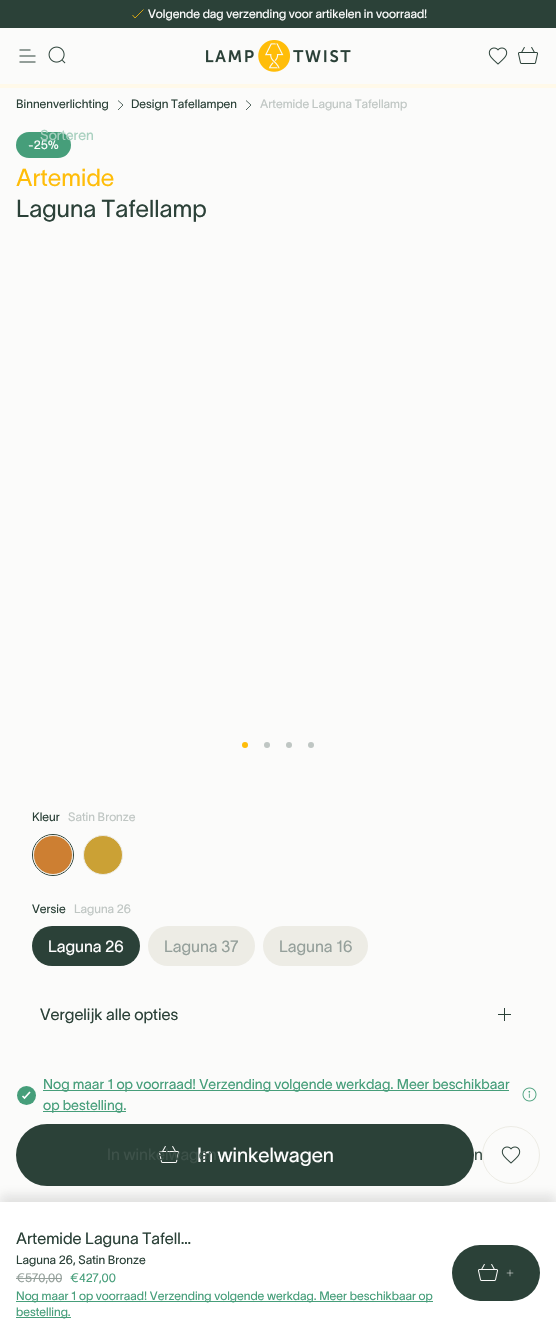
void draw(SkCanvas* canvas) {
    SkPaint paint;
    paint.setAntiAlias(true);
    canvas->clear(0xFFFBFBFA);
    paint.setColor(0xFF2B4138);
    canvas->drawRect(SkRect::MakeXYWH(0, 0, 556, 28), paint);
    paint.setStyle(SkPaint::kStroke_Style);
    paint.setStrokeWidth(0.8f);
    paint.setColor(0xFFFFBD09);
    canvas->drawPath(SkPathBuilder().moveTo(143.5f, 9.5f).lineTo(135, 18).lineTo(132.5f, 15).detach(), paint);
    SkFont font1(fontMgr->matchFamilyStyle("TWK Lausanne", SkFontStyle(300, SkFontStyle::kNormal_Width, SkFontStyle::kUpright_Slant)), 12);
    font1.setSubpixel(true);
    paint.setStyle(SkPaint::kFill_Style);
    paint.setColor(0xFFFFFFFF);
    canvas->drawString("Volgende dag verzending voor artikelen in voorraad!", 148, 18, font1, paint);
    canvas->drawImageRect(SkImages::DeferredFromEncodedData(SkData::MakeFromFileName("img1.png")), SkRect::MakeXYWH(206, 40, 145, 32), SkSamplingOptions());
    canvas->drawImageRect(SkImages::DeferredFromEncodedData(SkData::MakeFromFileName("img2.png")), SkRect::MakeXYWH(19, 49, 17, 14), SkSamplingOptions());
    canvas->drawImageRect(SkImages::DeferredFromEncodedData(SkData::MakeFromFileName("img3.png")), SkRect::MakeXYWH(48, 46, 18, 18), SkSamplingOptions());
    canvas->drawImageRect(SkImages::DeferredFromEncodedData(SkData::MakeFromFileName("img4.png")), SkRect::MakeXYWH(488, 47, 20, 18), SkSamplingOptions());
    canvas->drawImageRect(SkImages::DeferredFromEncodedData(SkData::MakeFromFileName("img5.png")), SkRect::MakeXYWH(518, 47, 20, 17), SkSamplingOptions());
    paint.setColor(0xFFFFF9E9);
    canvas->drawRect(SkRect::MakeXYWH(0, 84, 556, 4), paint);
    paint.setColor(0xFF2B4138);
    canvas->drawString("Binnenverlichting", 16, 108, font1, paint);
    paint.setStyle(SkPaint::kStroke_Style);
    canvas->drawPath(SkPathBuilder().moveTo(118, 100.5f).lineTo(123, 105).lineTo(118, 110).detach(), paint);
    paint.setStyle(SkPaint::kFill_Style);
    canvas->drawString("Design Tafellampen", 131, 108, font1, paint);
    paint.setStyle(SkPaint::kStroke_Style);
    canvas->drawPath(SkPathBuilder().moveTo(246, 100.5f).lineTo(251, 105).lineTo(246, 110).detach(), paint);
    paint.setStyle(SkPaint::kFill_Style);
    paint.setColor(0xFFBFC6C3);
    canvas->drawString("Artemide Laguna Tafellamp", 260, 108, font1, paint);
    paint.setColor(0xFF469E7A);
    canvas->drawRoundRect(SkRect::MakeXYWH(16, 132, 55, 26), 13, 13, paint);
    paint.setColor(0xFFFFFFFF);
    canvas->drawString("-25%", 28, 149, font1, paint);
    SkFont font2(fontMgr->matchFamilyStyle("TWK Lausanne", SkFontStyle(300, SkFontStyle::kNormal_Width, SkFontStyle::kUpright_Slant)), 24);
    font2.setSubpixel(true);
    paint.setColor(0xFFFFBD09);
    canvas->drawString("Artemide", 16, 186, font2, paint);
    paint.setColor(0xFF2B4138);
    canvas->drawString("Laguna Tafellamp", 16, 217, font2, paint);
    paint.setColor(0xFFFFBD09);
    canvas->drawCircle(245, 745, 3, paint);
    paint.setColor(0xFFBFC6C3);
    canvas->drawCircle(267, 745, 3, paint);
    canvas->drawCircle(289, 745, 3, paint);
    canvas->drawCircle(311, 745, 3, paint);
    paint.setColor(0xFF2B4138);
    canvas->drawString("Kleur", 32, 821, font1, paint);
    paint.setColor(0xFFBFC6C3);
    canvas->drawString("Satin Bronze", 68, 821, font1, paint);
    paint.setStyle(SkPaint::kStroke_Style);
    paint.setStrokeWidth(1);
    paint.setColor(0xFF2B4138);
    canvas->drawCircle(53, 855, 20.5f, paint);
    paint.setStyle(SkPaint::kFill_Style);
    paint.setColor(0xFFCD7F32);
    canvas->drawCircle(53, 855, 19.5f, paint);
    paint.setStyle(SkPaint::kStroke_Style);
    paint.setColor(0xFFEDECE5);
    canvas->drawCircle(53, 855, 19.5f, paint);
    paint.setStyle(SkPaint::kFill_Style);
    paint.setColor(0xFFCBA135);
    canvas->drawCircle(103, 855, 19.5f, paint);
    paint.setStyle(SkPaint::kStroke_Style);
    paint.setColor(0xFFEDECE5);
    canvas->drawCircle(103, 855, 19.5f, paint);
    paint.setStyle(SkPaint::kFill_Style);
    paint.setColor(0xFF2B4138);
    canvas->drawString("Versie", 32, 913, font1, paint);
    paint.setColor(0xFFBFC6C3);
    canvas->drawString("Laguna 26", 74, 913, font1, paint);
    paint.setColor(0xFF2B4138);
    canvas->drawRoundRect(SkRect::MakeXYWH(32, 926, 108, 40), 20, 20, paint);
    SkFont font3(fontMgr->matchFamilyStyle("TWK Lausanne", SkFontStyle(300, SkFontStyle::kNormal_Width, SkFontStyle::kUpright_Slant)), 16);
    font3.setSubpixel(true);
    paint.setColor(0xFFFFFFFF);
    canvas->drawString("Laguna 26", 48, 952, font3, paint);
    paint.setColor(0xFFEDECE5);
    canvas->drawRoundRect(SkRect::MakeXYWH(148, 926, 107, 40), 20, 20, paint);
    paint.setColor(0xFF95A09B);
    canvas->drawString("Laguna 37", 164, 952, font3, paint);
    paint.setColor(0xFFEDECE5);
    canvas->drawRoundRect(SkRect::MakeXYWH(263, 926, 105, 40), 20, 20, paint);
    paint.setColor(0xFF95A09B);
    canvas->drawString("Laguna 16", 279, 952, font3, paint);
    paint.setColor(0xFF2B4138);
    canvas->drawString("Vergelijk alle opties", 40, 1020, font3, paint);
    canvas->drawRect(SkRect::MakeXYWH(498, 1014, 13, 1), paint);
    canvas->drawRect(SkRect::MakeXYWH(504, 1008, 1, 13), paint);
    paint.setColor(0xFF469E7A);
    canvas->drawCircle(26.5f, 1095.5f, 9.5f, paint);
    paint.setStyle(SkPaint::kStroke_Style);
    paint.setStrokeWidth(1.7f);
    paint.setColor(0xFFFFFFFF);
    canvas->drawPath(SkPathBuilder().moveTo(30, 1092).lineTo(24.5f, 1098).lineTo(22.5f, 1096).detach(), paint);
    paint.setStyle(SkPaint::kFill_Style);
    paint.setColor(0xFF469E7A);
    canvas->drawRect(SkRect::MakeXYWH(43, 1090, 466, 1), paint);
    SkFont font4(fontMgr->matchFamilyStyle("TWK Lausanne", SkFontStyle(300, SkFontStyle::kNormal_Width, SkFontStyle::kUpright_Slant)), 14);
    font4.setSubpixel(true);
    canvas->drawString("Nog maar 1 op voorraad! Verzending volgende werkdag. Meer beschikbaar", 43, 1089, font4, paint);
    canvas->drawRect(SkRect::MakeXYWH(43, 1111, 83, 1), paint);
    canvas->drawString("op bestelling.", 43, 1110, font4, paint);
    canvas->drawImageRect(SkImages::DeferredFromEncodedData(SkData::MakeFromFileName("img6.png")), SkRect::MakeXYWH(522, 1087, 15, 15), SkSamplingOptions());
    paint.setColor(0xFF2B4138);
    canvas->drawRoundRect(SkRect::MakeXYWH(16, 1124, 458, 62), 31, 31, paint);
    canvas->drawImageRect(SkImages::DeferredFromEncodedData(SkData::MakeFromFileName("img7.png")), SkRect::MakeXYWH(159, 1146, 20, 17), SkSamplingOptions());
    SkFont font5(fontMgr->matchFamilyStyle("TWK Lausanne", SkFontStyle(300, SkFontStyle::kNormal_Width, SkFontStyle::kUpright_Slant)), 20);
    font5.setSubpixel(true);
    paint.setColor(0xFFFFFFFF);
    canvas->drawString("In winkelwagen", 197, 1162, font5, paint);
    paint.setStyle(SkPaint::kStroke_Style);
    paint.setStrokeWidth(1);
    paint.setColor(0xFFEDECE5);
    canvas->drawCircle(511, 1155, 28.5f, paint);
    canvas->drawImageRect(SkImages::DeferredFromEncodedData(SkData::MakeFromFileName("img4.png")), SkRect::MakeXYWH(501, 1146, 20, 18), SkSamplingOptions());
    paint.setStyle(SkPaint::kFill_Style);
    paint.setColor(0x33797979);
    paint.setMaskFilter(SkMaskFilter::MakeBlur(kNormal_SkBlurStyle, 5));
    canvas->drawRect(SkRect::MakeXYWH(0, 1195, 556, 142), paint);
    paint.setMaskFilter(nullptr);
    paint.setColor(0xFFFFFFFF);
    canvas->drawRect(SkRect::MakeXYWH(0, 1202, 556, 142), paint);
    paint.setColor(0xFF2B4138);
    canvas->drawString("Artemide Laguna Tafell…", 16, 1244, font3, paint);
    canvas->drawString("Laguna 26, Satin Bronze", 16, 1264, font1, paint);
    paint.setColor(0xFF95A09B);
    canvas->drawString("€570,00", 16, 1282, font1, paint);
    canvas->drawRect(SkRect::MakeXYWH(16, 1278, 46, 1), paint);
    paint.setColor(0xFF469E7A);
    canvas->drawString("€427,00", 70, 1282, font1, paint);
    canvas->drawRect(SkRect::MakeXYWH(16, 1301, 417, 1), paint);
    canvas->drawString("Nog maar 1 op voorraad! Verzending volgende werkdag. Meer beschikbaar op", 16, 1300, font1, paint);
    canvas->drawRect(SkRect::MakeXYWH(16, 1317, 55, 1), paint);
    canvas->drawString("bestelling.", 16, 1316, font1, paint);
    paint.setColor(0xFF2B4138);
    canvas->drawRoundRect(SkRect::MakeXYWH(452, 1245, 88, 56), 28, 28, paint);
    canvas->drawImageRect(SkImages::DeferredFromEncodedData(SkData::MakeFromFileName("img7.png")), SkRect::MakeXYWH(478, 1264, 20, 17), SkSamplingOptions());
    canvas->drawImageRect(SkImages::DeferredFromEncodedData(SkData::MakeFromFileName("img8.png")), SkRect::MakeXYWH(506, 1269, 8, 8), SkSamplingOptions());
    paint.setColor(0xFFA8D0BF);
    canvas->drawString("Sorteren", 40, 140, font4, paint);
    paint.setColor(0xFF3D5149);
    canvas->drawString("In winkelwagen", 107, 1160, font3, paint);
    canvas->drawString("n", 474, 1160, font3, paint);
}
